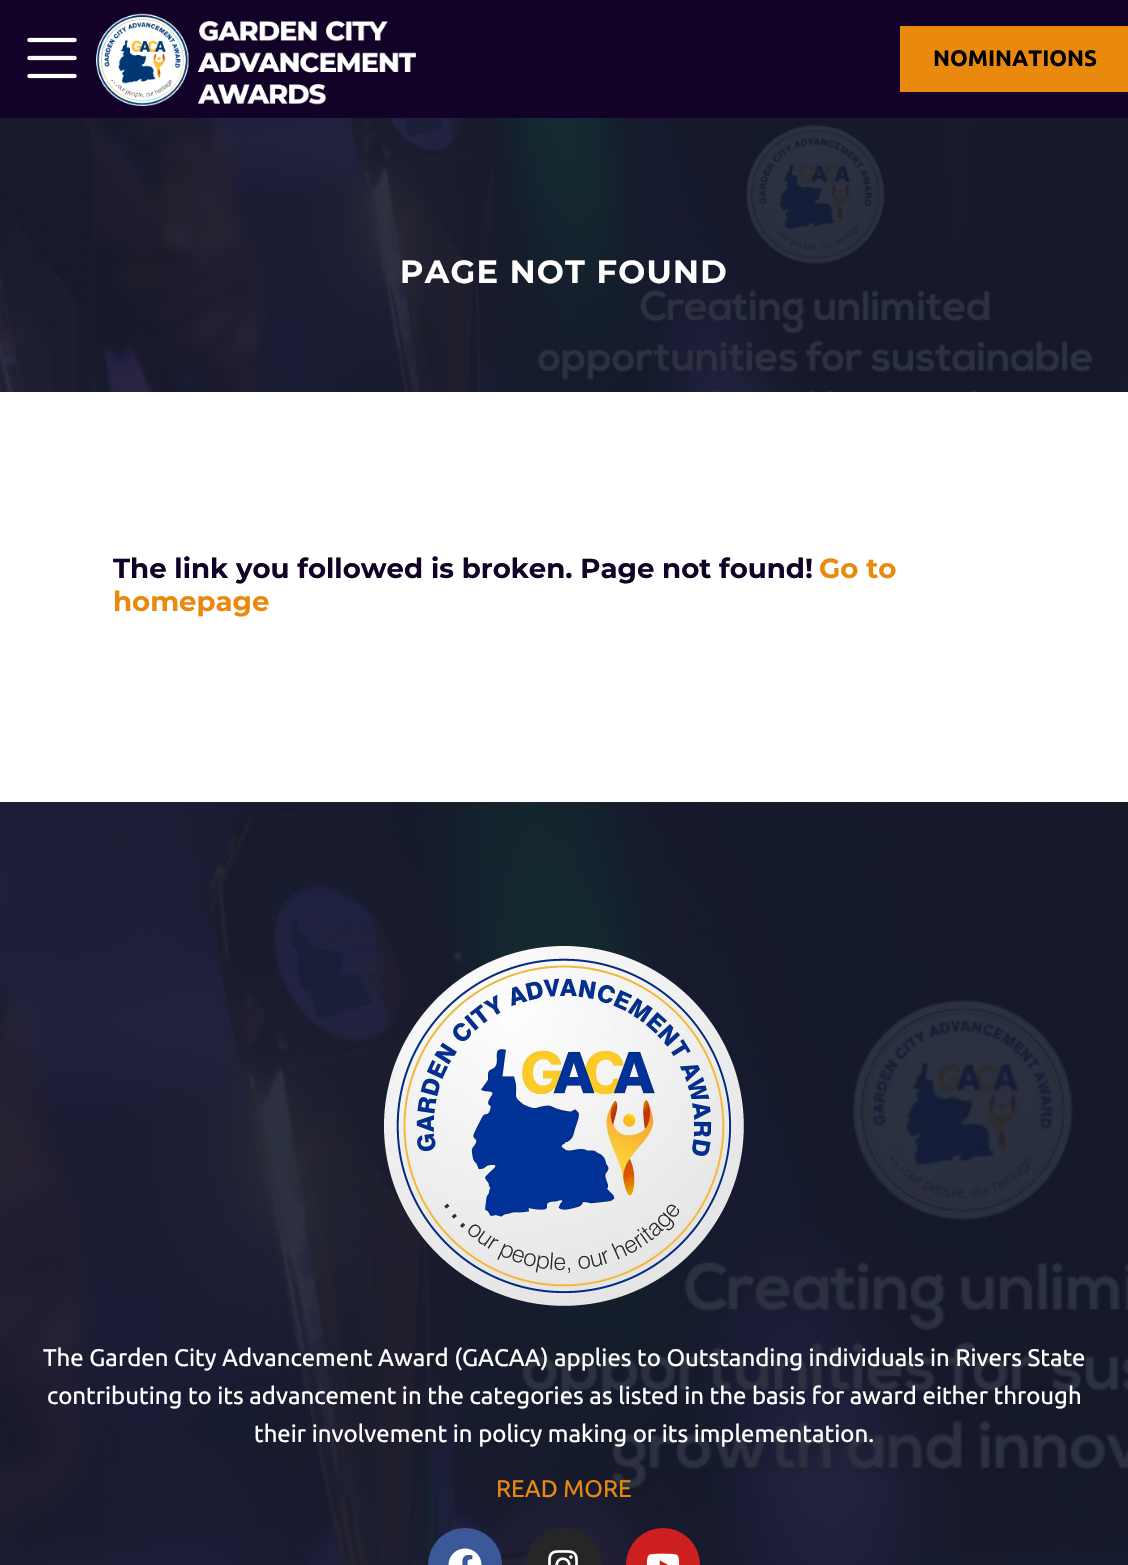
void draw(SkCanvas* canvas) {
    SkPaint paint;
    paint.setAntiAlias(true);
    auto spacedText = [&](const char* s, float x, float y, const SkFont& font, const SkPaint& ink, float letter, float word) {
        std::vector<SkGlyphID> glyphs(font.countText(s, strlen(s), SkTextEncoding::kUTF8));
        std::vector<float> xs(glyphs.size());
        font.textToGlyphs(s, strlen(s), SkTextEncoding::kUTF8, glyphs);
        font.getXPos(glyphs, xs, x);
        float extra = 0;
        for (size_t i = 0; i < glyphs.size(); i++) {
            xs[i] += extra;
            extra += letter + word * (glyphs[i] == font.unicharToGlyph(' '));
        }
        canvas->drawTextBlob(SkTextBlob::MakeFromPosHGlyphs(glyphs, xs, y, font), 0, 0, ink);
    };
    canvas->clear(0xFFFFFFFF);
    paint.setColor(0xFF120227);
    canvas->drawRect(SkRect::MakeXYWH(0, 0, 1128, 118), paint);
    canvas->drawImageRect(SkImages::DeferredFromEncodedData(SkData::MakeFromFileName("img1.png")), SkRect::MakeXYWH(27, 37, 50, 42), SkSamplingOptions());
    canvas->drawImageRect(SkImages::DeferredFromEncodedData(SkData::MakeFromFileName("img2.png")), SkRect::MakeXYWH(96, 13, 320, 93), SkSamplingOptions());
    paint.setColor(0xFFE98A0F);
    canvas->drawRect(SkRect::MakeXYWH(900, 26, 228, 66), paint);
    SkFont font1(fontMgr->matchFamilyStyle("Ubuntu", SkFontStyle::Bold()), 22.5f);
    font1.setSubpixel(true);
    paint.setColor(0xFF000000);
    canvas->drawString("NOMINATIONS", 933, 66, font1, paint);
    canvas->drawImageRect(SkImages::DeferredFromEncodedData(SkData::MakeFromFileName("img3.png")), SkRect::MakeXYWH(0, 118, 1128, 274), SkSamplingOptions());
    SkFont font2(fontMgr->matchFamilyStyle("Montserrat", SkFontStyle::Bold()), 32);
    font2.setSubpixel(true);
    paint.setColor(0xFFFFFFFF);
    spacedText("PAGE NOT FOUND", 400, 283, font2, paint, 1.3f, 0);
    SkFont font3(fontMgr->matchFamilyStyle("Montserrat", SkFontStyle::Bold()), 27.6f);
    font3.setSubpixel(true);
    paint.setColor(0xFF120227);
    canvas->drawString("The link you followed is broken. Page not found!", 113, 578, font3, paint);
    paint.setColor(0xFFE98A0F);
    canvas->drawString("Go to", 819, 578, font3, paint);
    canvas->drawString("homepage", 113, 611, font3, paint);
    canvas->drawImageRect(SkImages::DeferredFromEncodedData(SkData::MakeFromFileName("img4.png")), SkRect::MakeXYWH(0, 802, 1128, 763), SkSamplingOptions());
    canvas->drawImageRect(SkImages::DeferredFromEncodedData(SkData::MakeFromFileName("img5.png")), SkRect::MakeXYWH(384, 946, 360, 360), SkSamplingOptions());
    SkFont font4(fontMgr->matchFamilyStyle("Ubuntu", SkFontStyle::Normal()), 24);
    font4.setSubpixel(true);
    paint.setColor(0xFFFFFFFF);
    canvas->drawString("The Garden City Advancement Award (GACAA) applies to Outstanding individuals in Rivers State", 43, 1366, font4, paint);
    canvas->drawString("contributing to its advancement in the categories as listed in the basis for award either through", 47, 1404, font4, paint);
    canvas->drawString("their involvement in policy making or its implementation.", 254, 1442, font4, paint);
    paint.setColor(0xFFE98A0F);
    canvas->drawString("READ MORE", 496, 1497, font4, paint);
    paint.setColor(0xFF3B5998);
    canvas->drawCircle(465, 1565, 37, paint);
    canvas->drawImageRect(SkImages::DeferredFromEncodedData(SkData::MakeFromFileName("img6.png")), SkRect::MakeXYWH(448, 1548, 34, 17), SkSamplingOptions());
    paint.setColor(0xFF262626);
    canvas->drawRoundRect(SkRect::MakeXYWH(526, 1528, 76, 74), 37, 37, paint);
    canvas->drawImageRect(SkImages::DeferredFromEncodedData(SkData::MakeFromFileName("img7.png")), SkRect::MakeXYWH(548, 1550, 30, 15), SkSamplingOptions());
    paint.setColor(0xFFCD201F);
    canvas->drawCircle(663, 1565, 37, paint);
    canvas->drawImageRect(SkImages::DeferredFromEncodedData(SkData::MakeFromFileName("img8.png")), SkRect::MakeXYWH(646, 1553, 34, 12), SkSamplingOptions());
}
